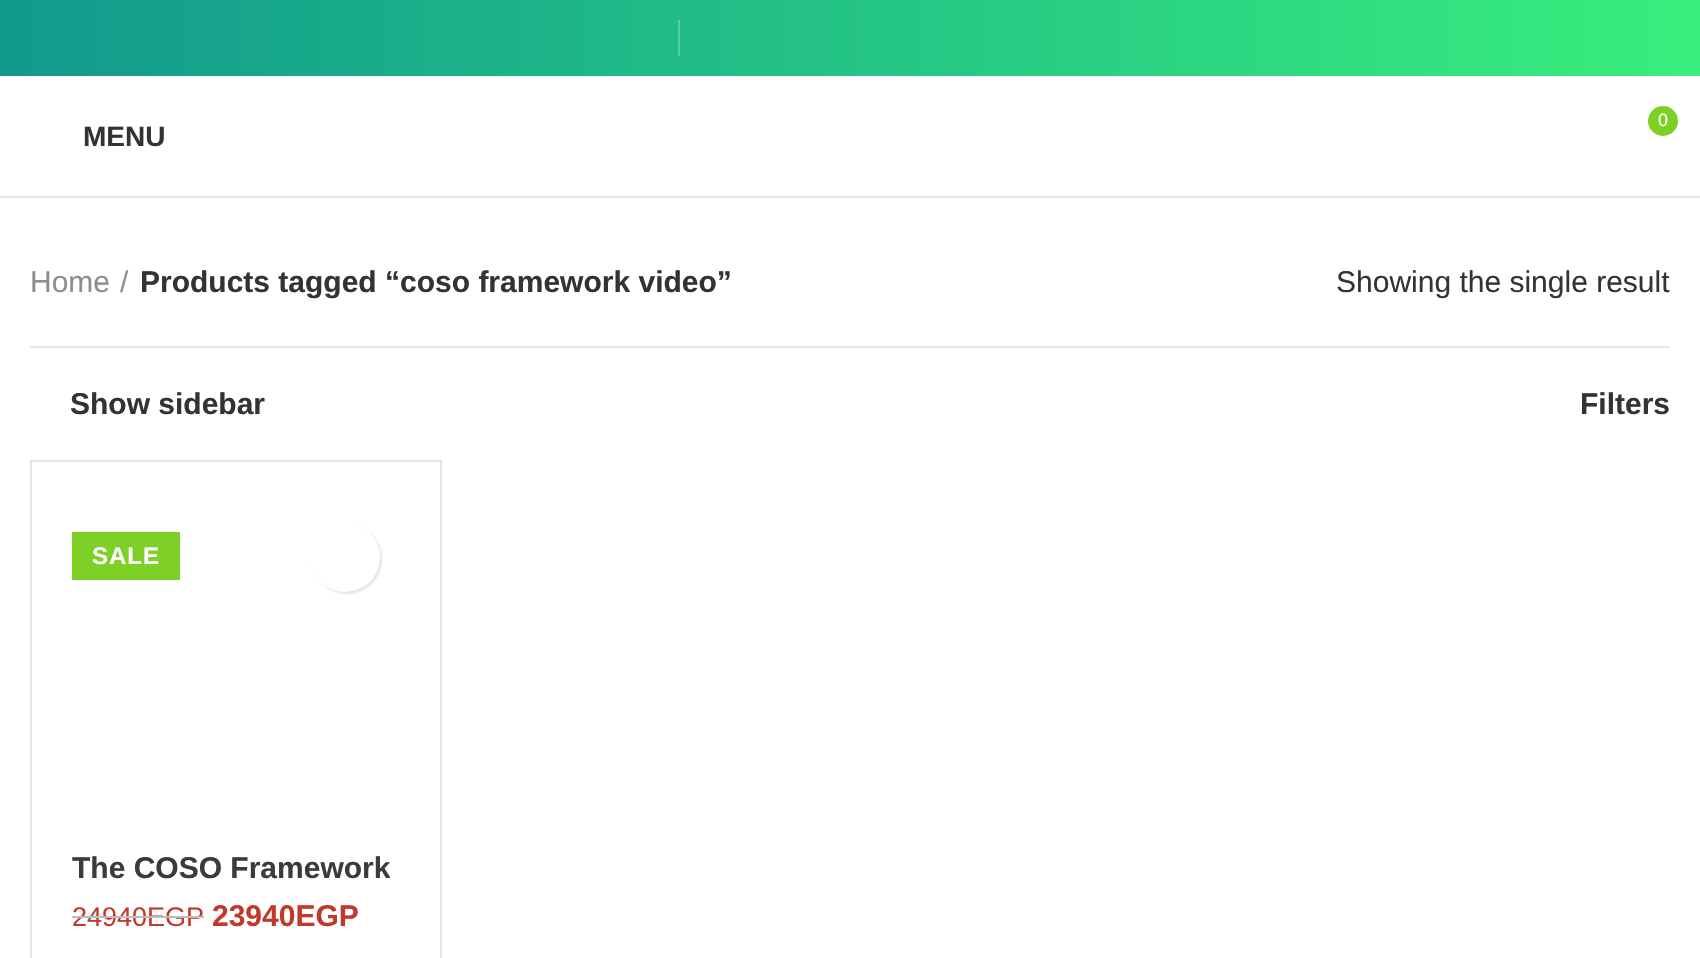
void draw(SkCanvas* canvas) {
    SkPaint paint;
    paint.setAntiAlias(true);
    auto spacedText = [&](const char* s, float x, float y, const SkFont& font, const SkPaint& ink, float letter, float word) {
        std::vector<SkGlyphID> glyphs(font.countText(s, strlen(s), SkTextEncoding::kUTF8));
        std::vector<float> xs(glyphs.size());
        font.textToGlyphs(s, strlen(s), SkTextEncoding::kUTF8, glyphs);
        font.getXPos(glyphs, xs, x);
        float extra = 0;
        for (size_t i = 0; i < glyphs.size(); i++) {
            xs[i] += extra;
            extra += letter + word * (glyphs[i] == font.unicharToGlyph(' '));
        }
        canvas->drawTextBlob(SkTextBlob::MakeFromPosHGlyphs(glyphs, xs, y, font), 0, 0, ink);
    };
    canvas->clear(0xFFFFFFFF);
    {
        const SkColor colors[] = {0xFF11998E, 0xFF38EF7D};
        const float stops[] = {0, 1};
        const SkPoint ends[] = {{0, 38}, {1700, 38}};
        paint.setShader(SkGradientShader::MakeLinear(ends, colors, stops, 2, SkTileMode::kClamp));
        paint.setAlpha(255);
    }
    canvas->drawRect(SkRect::MakeXYWH(0, 0, 1700, 76), paint);
    paint.setShader(nullptr);
    paint.setColor(0xFF59CCA5);
    canvas->drawRect(SkRect::MakeXYWH(678, 20, 2, 36), paint);
    paint.setColor(0xFFE8E8E8);
    canvas->drawRect(SkRect::MakeXYWH(0, 196, 1700, 2), paint);
    paint.setColor(0xFF7ED027);
    canvas->drawCircle(1663, 121, 15, paint);
    SkFont font1(fontMgr->matchFamilyStyle("Liberation Sans", SkFontStyle::Normal()), 18);
    font1.setSubpixel(true);
    paint.setColor(0xFFFFFFFF);
    canvas->drawString("0", 1658, 126, font1, paint);
    SkFont font2(fontMgr->matchFamilyStyle("Liberation Sans", SkFontStyle::Bold()), 28);
    font2.setSubpixel(true);
    paint.setColor(0xFF333333);
    canvas->drawString("MENU", 83, 146, font2, paint);
    paint.setColor(0xFFE6E6E6);
    canvas->drawRect(SkRect::MakeXYWH(30, 346, 1640, 2), paint);
    SkFont font3(fontMgr->matchFamilyStyle("Liberation Sans", SkFontStyle::Normal()), 30);
    font3.setSubpixel(true);
    paint.setColor(0xFF8E8E8E);
    canvas->drawString("Home", 30, 292, font3, paint);
    canvas->drawString("/", 120, 292, font3, paint);
    SkFont font4(fontMgr->matchFamilyStyle("Liberation Sans", SkFontStyle::Bold()), 30);
    font4.setSubpixel(true);
    paint.setColor(0xFF333333);
    canvas->drawString("Products tagged “coso framework video”", 140, 292, font4, paint);
    canvas->drawString("Showing the single result", 1336, 292, font3, paint);
    canvas->drawString("Show sidebar", 70, 414, font4, paint);
    canvas->drawString("Filters", 1580, 414, font4, paint);
    paint.setColor(0xFFE4E4E4);
    canvas->drawRect(SkRect::MakeXYWH(30, 460, 2, 498), paint);
    canvas->drawPath(SkPathBuilder().moveTo(32, 460).lineTo(442, 460).lineTo(440, 462).lineTo(32, 462).close().detach(), paint);
    paint.setColor(0x33777777);
    canvas->drawPath(SkPathBuilder().moveTo(442, 460).lineTo(442, 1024).lineTo(440, 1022).lineTo(440, 462).close().detach(), paint);
    paint.setColor(0xFF7ED027);
    canvas->drawRect(SkRect::MakeXYWH(72, 532, 108, 48), paint);
    SkFont font5(fontMgr->matchFamilyStyle("Liberation Sans", SkFontStyle::Bold()), 24);
    font5.setSubpixel(true);
    paint.setColor(0xFFFFFFFF);
    spacedText("SALE", 92, 564, font5, paint, 1, 0);
    paint.setColor(0x1A000000);
    paint.setMaskFilter(SkMaskFilter::MakeBlur(kNormal_SkBlurStyle, 1));
    canvas->drawRoundRect(SkRect::MakeXYWH(312, 524, 70, 70), 35, 35, paint);
    paint.setMaskFilter(nullptr);
    paint.setColor(0xFFFFFFFF);
    canvas->drawCircle(345, 557, 35, paint);
    paint.setColor(0xFF3E3A39);
    canvas->drawString("The COSO Framework", 72, 878, font4, paint);
    SkFont font6(fontMgr->matchFamilyStyle("Liberation Sans", SkFontStyle::Normal()), 27);
    font6.setSubpixel(true);
    paint.setColor(0xFFC0392B);
    canvas->drawString("24940EGP", 72, 926, font6, paint);
    paint.setColor(0xFFBDBDBD);
    canvas->drawRect(SkRect::MakeXYWH(72, 916, 132, 2), paint);
    paint.setColor(0xFFC0392B);
    canvas->drawString("23940EGP", 212, 926, font4, paint);
}
